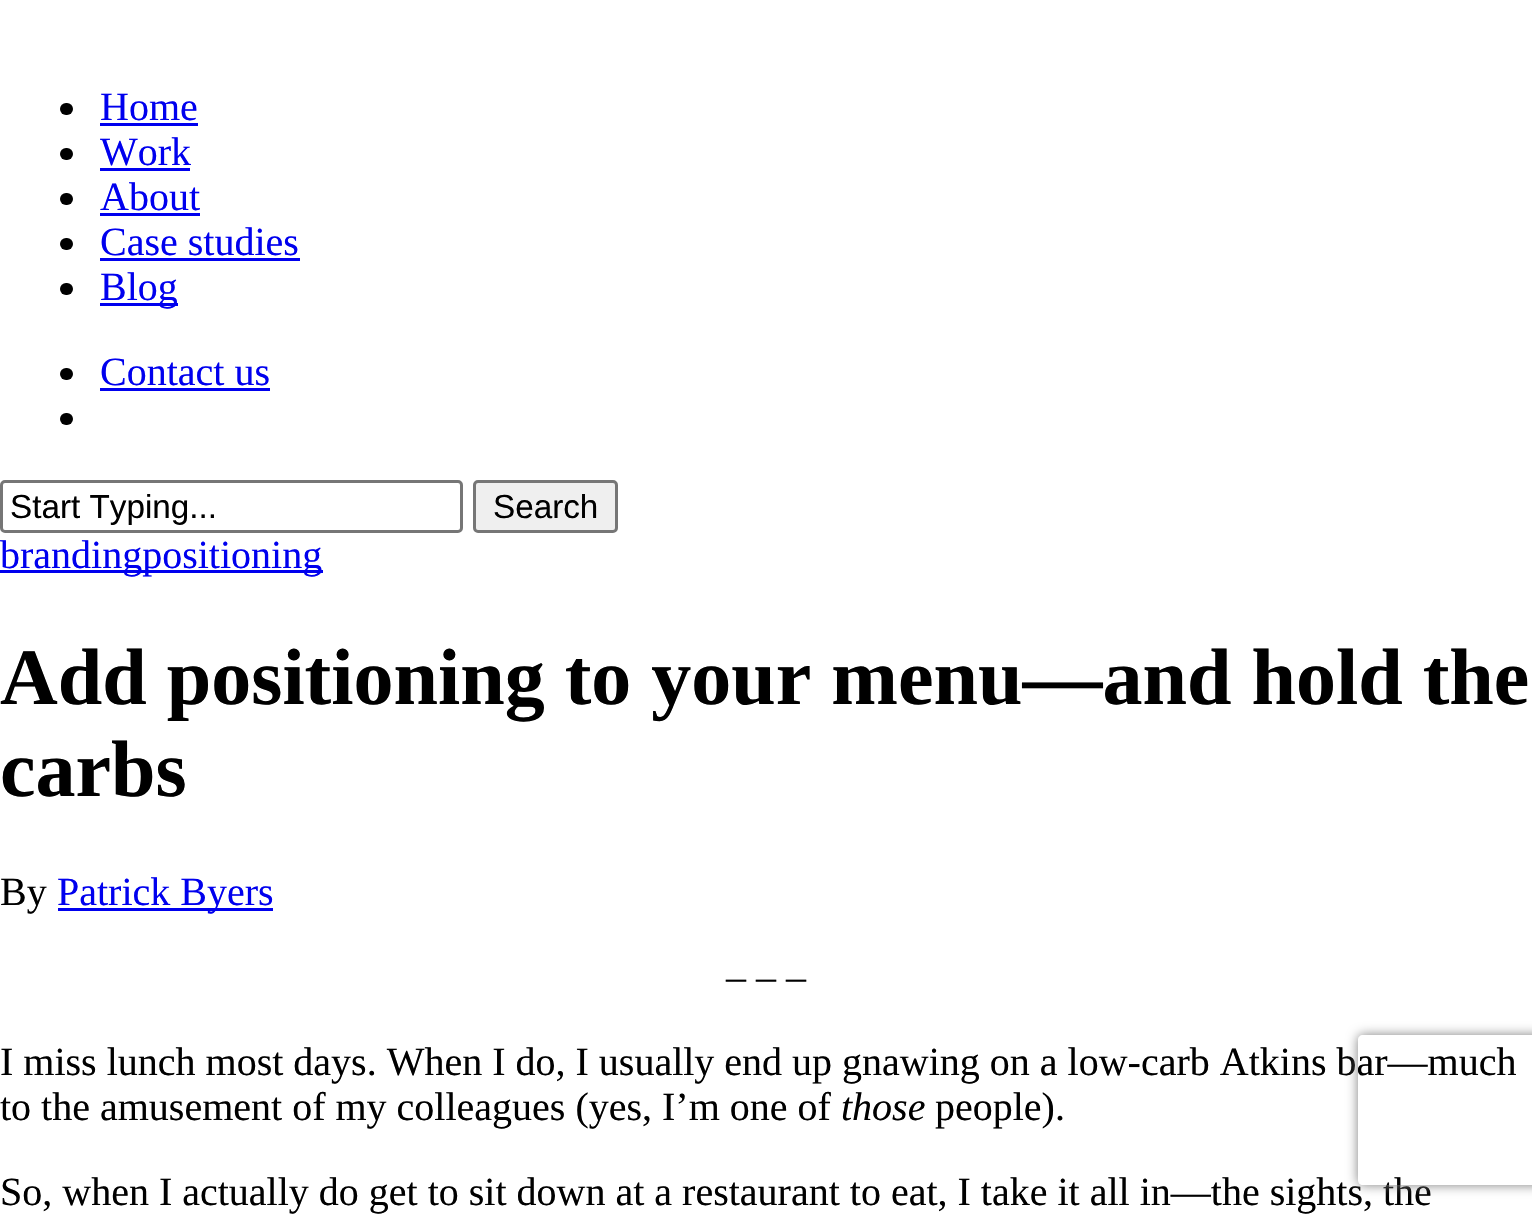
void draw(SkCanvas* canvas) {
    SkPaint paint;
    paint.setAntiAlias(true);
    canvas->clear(0xFFFFFFFF);
    paint.setColor(0xFF000000);
    canvas->drawRoundRect(SkRect::MakeXYWH(60, 103, 13, 12), 6, 6, paint);
    SkFont font1(fontMgr->matchFamilyStyle("Liberation Serif", SkFontStyle::Normal()), 40);
    font1.setSubpixel(true);
    paint.setColor(0xFF0000EE);
    canvas->drawString("Home", 100, 120, font1, paint);
    canvas->drawRect(SkRect::MakeXYWH(100, 123, 98, 3), paint);
    paint.setColor(0xFF000000);
    canvas->drawRoundRect(SkRect::MakeXYWH(60, 148, 13, 12), 6, 6, paint);
    paint.setColor(0xFF0000EE);
    canvas->drawString("Work", 100, 165, font1, paint);
    canvas->drawRect(SkRect::MakeXYWH(100, 168, 90, 3), paint);
    paint.setColor(0xFF000000);
    canvas->drawRoundRect(SkRect::MakeXYWH(60, 193, 13, 12), 6, 6, paint);
    paint.setColor(0xFF0000EE);
    canvas->drawString("About", 100, 210, font1, paint);
    canvas->drawRect(SkRect::MakeXYWH(100, 213, 100, 3), paint);
    paint.setColor(0xFF000000);
    canvas->drawRoundRect(SkRect::MakeXYWH(60, 238, 13, 12), 6, 6, paint);
    paint.setColor(0xFF0000EE);
    canvas->drawString("Case studies", 100, 255, font1, paint);
    canvas->drawRect(SkRect::MakeXYWH(100, 258, 200, 3), paint);
    paint.setColor(0xFF000000);
    canvas->drawRoundRect(SkRect::MakeXYWH(60, 283, 13, 12), 6, 6, paint);
    paint.setColor(0xFF0000EE);
    canvas->drawRect(SkRect::MakeXYWH(100, 303, 78, 3), paint);
    canvas->drawString("Blog", 100, 300, font1, paint);
    paint.setColor(0xFF000000);
    canvas->drawRoundRect(SkRect::MakeXYWH(60, 368, 13, 12), 6, 6, paint);
    paint.setColor(0xFF0000EE);
    canvas->drawString("Contact us", 100, 385, font1, paint);
    canvas->drawRect(SkRect::MakeXYWH(100, 388, 170, 3), paint);
    paint.setColor(0xFF000000);
    canvas->drawRoundRect(SkRect::MakeXYWH(60, 413, 13, 12), 6, 6, paint);
    paint.setStyle(SkPaint::kStroke_Style);
    paint.setStrokeWidth(3);
    paint.setColor(0xFF767676);
    canvas->drawRoundRect(SkRect::MakeXYWH(1.5f, 481.5f, 460, 50), 3.5f, 3.5f, paint);
    SkFont font2(fontMgr->matchFamilyStyle("Liberation Sans", SkFontStyle::Normal()), 33.25f);
    font2.setSubpixel(true);
    paint.setStyle(SkPaint::kFill_Style);
    paint.setColor(0xFF000000);
    canvas->drawString("Start Typing...", 10, 518, font2, paint);
    paint.setColor(0xFFEFEFEF);
    canvas->drawRoundRect(SkRect::MakeXYWH(474.5f, 481.5f, 142, 50), 3.5f, 3.5f, paint);
    paint.setStyle(SkPaint::kStroke_Style);
    paint.setColor(0xFF767676);
    canvas->drawRoundRect(SkRect::MakeXYWH(474.5f, 481.5f, 142, 50), 3.5f, 3.5f, paint);
    paint.setStyle(SkPaint::kFill_Style);
    paint.setColor(0xFF000000);
    canvas->drawString("Search", 493, 518, font2, paint);
    paint.setColor(0xFF0000EE);
    canvas->drawRect(SkRect::MakeXYWH(0, 570, 323, 3), paint);
    canvas->drawString("brandingpositioning", 0, 568, font1, paint);
    SkFont font3(fontMgr->matchFamilyStyle("Liberation Serif", SkFontStyle::Bold()), 80);
    font3.setSubpixel(true);
    paint.setColor(0xFF000000);
    canvas->drawString("Add positioning to your menu—and hold the", 0, 704, font3, paint);
    canvas->drawString("carbs", 0, 796, font3, paint);
    canvas->drawString("By", 0, 905, font1, paint);
    paint.setColor(0xFF0000EE);
    canvas->drawRect(SkRect::MakeXYWH(58, 908, 215, 3), paint);
    canvas->drawString("Patrick Byers", 57, 905, font1, paint);
    paint.setColor(0xFF000000);
    canvas->drawString("– – –", 726, 990, font1, paint);
    canvas->drawString("I miss lunch most days. When I do, I usually end up gnawing on a low-carb Atkins bar—much", 0, 1075, font1, paint);
    canvas->drawString("to the amusement of my colleagues (yes, I’m one of", 0, 1120, font1, paint);
    SkFont font4(fontMgr->matchFamilyStyle("Liberation Serif", SkFontStyle::Italic()), 40);
    font4.setSubpixel(true);
    canvas->drawString("those", 841, 1120, font4, paint);
    canvas->drawString("people).", 935, 1120, font1, paint);
    canvas->drawString("So, when I actually do get to sit down at a restaurant to eat, I take it all in—the sights, the", 0, 1205, font1, paint);
    canvas->save();
    canvas->clipPath(SkPathBuilder(SkPathFillType::kEvenOdd).moveTo(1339, 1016).lineTo(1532, 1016).lineTo(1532, 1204).lineTo(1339, 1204).close().moveTo(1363, 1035).lineTo(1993, 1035).cubicTo(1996, 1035, 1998, 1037, 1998, 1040).lineTo(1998, 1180).cubicTo(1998, 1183, 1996, 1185, 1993, 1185).lineTo(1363, 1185).cubicTo(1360, 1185, 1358, 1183, 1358, 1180).lineTo(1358, 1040).cubicTo(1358, 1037, 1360, 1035, 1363, 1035).close().detach(), true);
    paint.setColor(0xFF808080);
    paint.setMaskFilter(SkMaskFilter::MakeBlur(kNormal_SkBlurStyle, 6));
    canvas->drawRoundRect(SkRect::MakeXYWH(1358, 1035, 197, 150), 5, 5, paint);
    paint.setMaskFilter(nullptr);
    canvas->restore();
}
